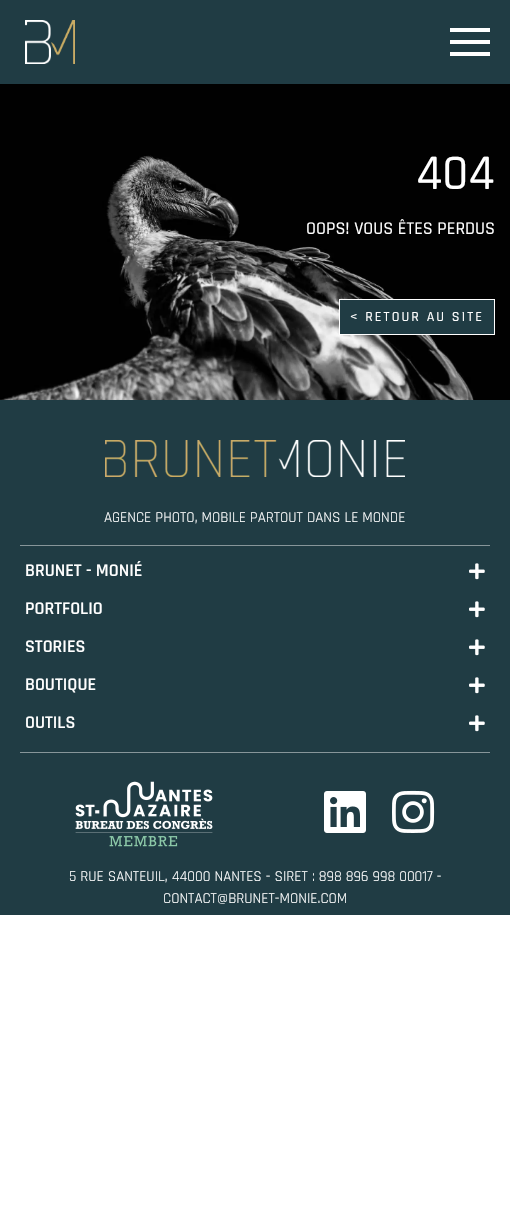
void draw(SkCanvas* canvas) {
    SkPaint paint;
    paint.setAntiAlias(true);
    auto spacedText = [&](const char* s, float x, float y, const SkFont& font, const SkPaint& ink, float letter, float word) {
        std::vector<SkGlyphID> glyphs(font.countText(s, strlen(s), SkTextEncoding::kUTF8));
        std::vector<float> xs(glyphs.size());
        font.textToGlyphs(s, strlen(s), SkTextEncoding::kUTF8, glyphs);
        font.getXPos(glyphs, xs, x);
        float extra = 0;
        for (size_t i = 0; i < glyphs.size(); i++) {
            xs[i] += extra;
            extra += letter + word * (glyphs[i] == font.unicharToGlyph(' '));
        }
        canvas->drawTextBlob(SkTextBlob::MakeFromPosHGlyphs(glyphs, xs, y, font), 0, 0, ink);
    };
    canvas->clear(0xFFFFFFFF);
    paint.setColor(0xFF203C44);
    canvas->drawRect(SkRect::MakeXYWH(0, 0, 510, 84), paint);
    canvas->drawImageRect(SkImages::DeferredFromEncodedData(SkData::MakeFromFileName("img1.png")), SkRect::MakeXYWH(25, 20, 50, 44), SkSamplingOptions());
    canvas->drawImageRect(SkImages::DeferredFromEncodedData(SkData::MakeFromFileName("img2.png")), SkRect::MakeXYWH(450, 28, 40, 28), SkSamplingOptions());
    canvas->drawImageRect(SkImages::DeferredFromEncodedData(SkData::MakeFromFileName("img3.png")), SkRect::MakeXYWH(0, 84, 510, 316), SkSamplingOptions());
    SkFont font1(fontMgr->matchFamilyStyle("Rajdhani", SkFontStyle(500, SkFontStyle::kNormal_Width, SkFontStyle::kUpright_Slant)), 50);
    font1.setSubpixel(true);
    paint.setColor(0xFFFFFFFF);
    canvas->drawString("404", 416, 189, font1, paint);
    SkFont font2(fontMgr->matchFamilyStyle("Rajdhani", SkFontStyle(500, SkFontStyle::kNormal_Width, SkFontStyle::kUpright_Slant)), 18);
    font2.setSubpixel(true);
    canvas->drawString("OOPS! VOUS ÊTES PERDUS", 306, 234, font2, paint);
    paint.setColor(0xFF203C44);
    canvas->drawRect(SkRect::MakeXYWH(339.5f, 299.5f, 155, 35), paint);
    paint.setStyle(SkPaint::kStroke_Style);
    paint.setStrokeWidth(1);
    paint.setColor(0xFFFFFFFF);
    canvas->drawRect(SkRect::MakeXYWH(339.5f, 299.5f, 155, 35), paint);
    SkFont font3(fontMgr->matchFamilyStyle("Rajdhani", SkFontStyle(500, SkFontStyle::kNormal_Width, SkFontStyle::kUpright_Slant)), 14);
    font3.setSubpixel(true);
    paint.setStyle(SkPaint::kFill_Style);
    spacedText("< RETOUR AU SITE", 350, 321, font3, paint, 2.1f, 0);
    paint.setColor(0xFF203C44);
    canvas->drawRect(SkRect::MakeXYWH(0, 400, 510, 515), paint);
    canvas->drawImageRect(SkImages::DeferredFromEncodedData(SkData::MakeFromFileName("img4.png")), SkRect::MakeXYWH(105, 440, 300, 37), SkSamplingOptions());
    SkFont font4(fontMgr->matchFamilyStyle("Rajdhani", SkFontStyle::Normal()), 15);
    font4.setSubpixel(true);
    paint.setColor(0xFFFFFFFF);
    canvas->drawString("AGENCE PHOTO, MOBILE PARTOUT DANS LE MONDE", 104, 522, font4, paint);
    paint.setColor(0xFF87969A);
    canvas->drawRect(SkRect::MakeXYWH(20, 545, 470, 1), paint);
    SkFont font5(fontMgr->matchFamilyStyle("Rajdhani", SkFontStyle(600, SkFontStyle::kNormal_Width, SkFontStyle::kUpright_Slant)), 18);
    font5.setSubpixel(true);
    paint.setColor(0xFFFFFFFF);
    canvas->drawString("BRUNET - MONIÉ", 25, 576, font5, paint);
    canvas->drawImageRect(SkImages::DeferredFromEncodedData(SkData::MakeFromFileName("img5.png")), SkRect::MakeXYWH(469, 563, 16, 17), SkSamplingOptions());
    canvas->drawString("PORTFOLIO", 25, 614, font5, paint);
    canvas->drawImageRect(SkImages::DeferredFromEncodedData(SkData::MakeFromFileName("img5.png")), SkRect::MakeXYWH(469, 601, 16, 17), SkSamplingOptions());
    canvas->drawString("STORIES", 25, 652, font5, paint);
    canvas->drawImageRect(SkImages::DeferredFromEncodedData(SkData::MakeFromFileName("img5.png")), SkRect::MakeXYWH(469, 639, 16, 17), SkSamplingOptions());
    canvas->drawString("BOUTIQUE", 25, 690, font5, paint);
    canvas->drawImageRect(SkImages::DeferredFromEncodedData(SkData::MakeFromFileName("img5.png")), SkRect::MakeXYWH(469, 677, 16, 17), SkSamplingOptions());
    canvas->drawString("OUTILS", 25, 728, font5, paint);
    canvas->drawImageRect(SkImages::DeferredFromEncodedData(SkData::MakeFromFileName("img5.png")), SkRect::MakeXYWH(469, 715, 16, 17), SkSamplingOptions());
    paint.setColor(0xFF87969A);
    canvas->drawRect(SkRect::MakeXYWH(20, 752, 470, 1), paint);
    canvas->drawImageRect(SkImages::DeferredFromEncodedData(SkData::MakeFromFileName("img6.png")), SkRect::MakeXYWH(75, 781, 138, 66), SkSamplingOptions());
    canvas->drawImageRect(SkImages::DeferredFromEncodedData(SkData::MakeFromFileName("img7.png")), SkRect::MakeXYWH(324, 791, 42, 42), SkSamplingOptions());
    canvas->drawImageRect(SkImages::DeferredFromEncodedData(SkData::MakeFromFileName("img8.png")), SkRect::MakeXYWH(392, 790, 43, 43), SkSamplingOptions());
    paint.setColor(0xFFFFFFFF);
    canvas->drawString("5 RUE SANTEUIL, 44000 NANTES - SIRET : 898 896 998 00017 -", 69, 881, font4, paint);
    canvas->drawString("CONTACT@BRUNET-MONIE.COM", 163, 903, font4, paint);
}
